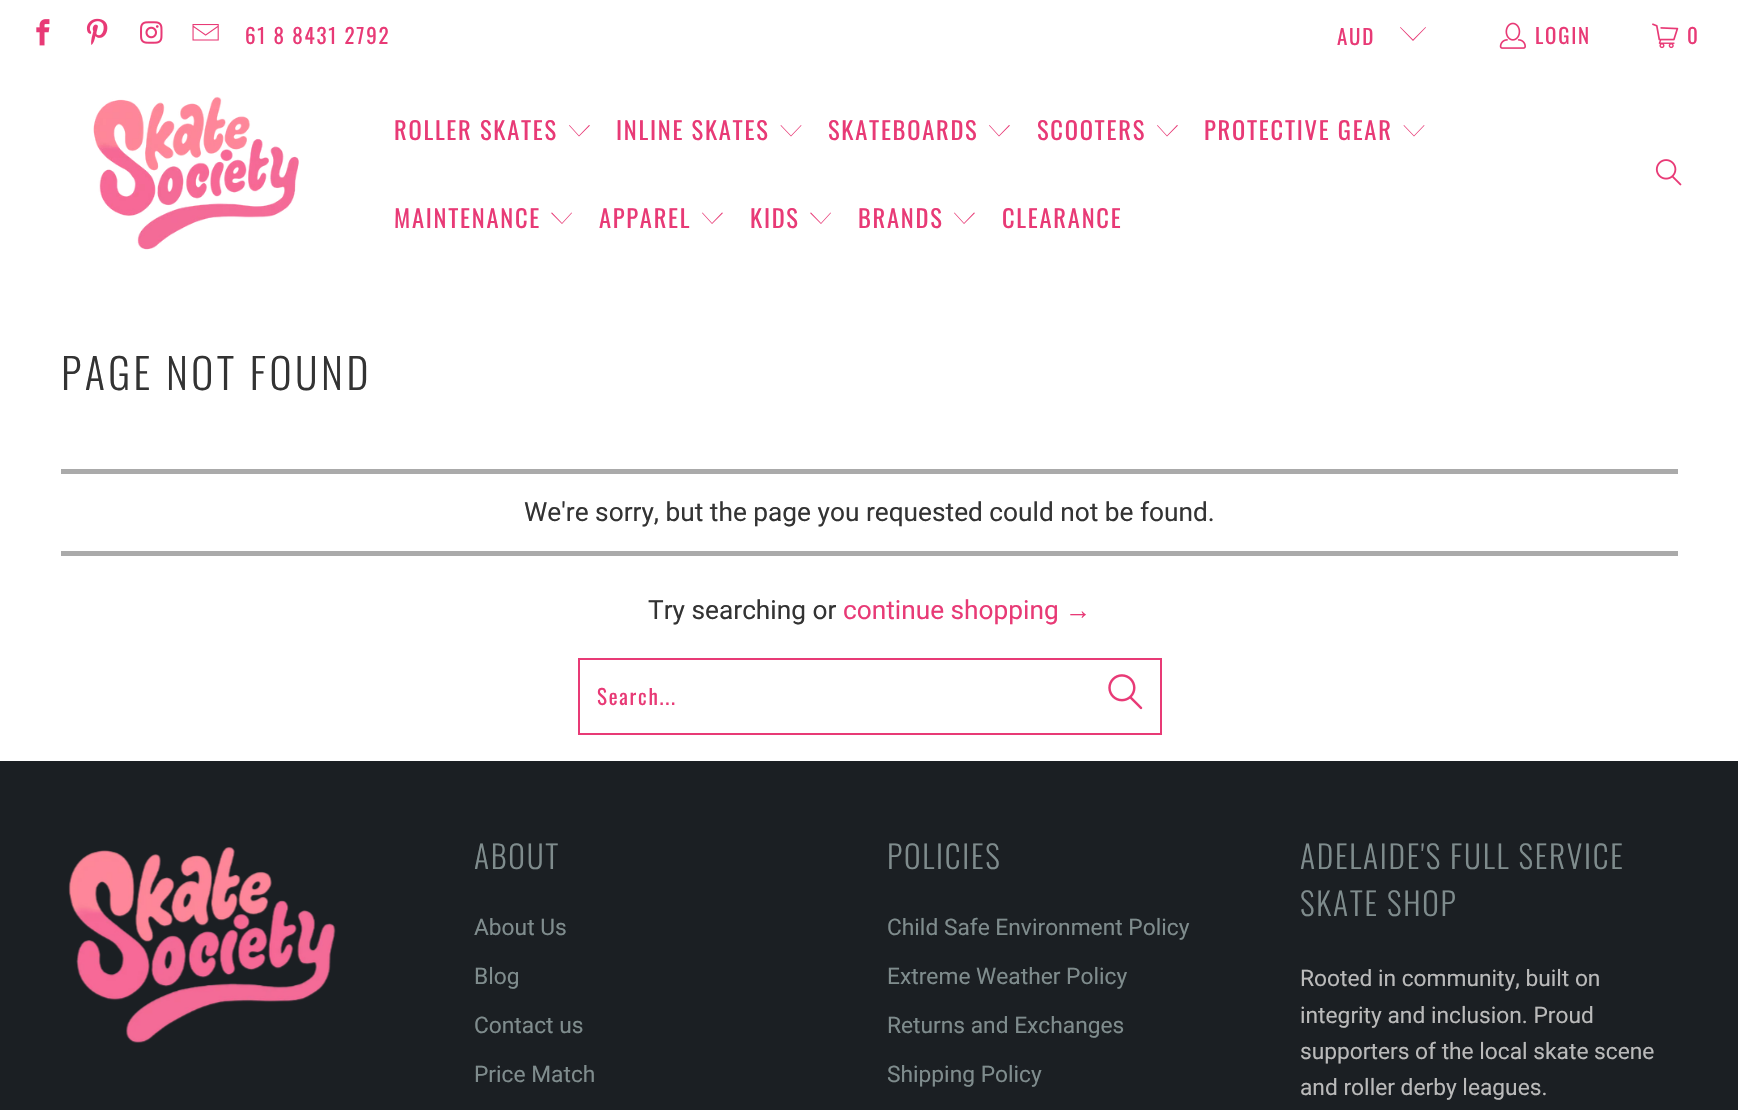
void draw(SkCanvas* canvas) {
    SkPaint paint;
    paint.setAntiAlias(true);
    auto spacedText = [&](const char* s, float x, float y, const SkFont& font, const SkPaint& ink, float letter, float word) {
        std::vector<SkGlyphID> glyphs(font.countText(s, strlen(s), SkTextEncoding::kUTF8));
        std::vector<float> xs(glyphs.size());
        font.textToGlyphs(s, strlen(s), SkTextEncoding::kUTF8, glyphs);
        font.getXPos(glyphs, xs, x);
        float extra = 0;
        for (size_t i = 0; i < glyphs.size(); i++) {
            xs[i] += extra;
            extra += letter + word * (glyphs[i] == font.unicharToGlyph(' '));
        }
        canvas->drawTextBlob(SkTextBlob::MakeFromPosHGlyphs(glyphs, xs, y, font), 0, 0, ink);
    };
    canvas->clear(0xFFFFFFFF);
    canvas->drawImageRect(SkImages::DeferredFromEncodedData(SkData::MakeFromFileName("img1.png")), SkRect::MakeXYWH(36, 19, 14, 27), SkSamplingOptions());
    canvas->drawImageRect(SkImages::DeferredFromEncodedData(SkData::MakeFromFileName("img2.png")), SkRect::MakeXYWH(86, 18, 22, 27), SkSamplingOptions());
    canvas->drawImageRect(SkImages::DeferredFromEncodedData(SkData::MakeFromFileName("img3.png")), SkRect::MakeXYWH(140, 21, 23, 23), SkSamplingOptions());
    canvas->drawImageRect(SkImages::DeferredFromEncodedData(SkData::MakeFromFileName("img4.png")), SkRect::MakeXYWH(192, 24, 27, 17), SkSamplingOptions());
    SkFont font1(fontMgr->matchFamilyStyle("Oswald", SkFontStyle::Normal()), 21);
    font1.setSubpixel(true);
    paint.setColor(0xFFE83A76);
    spacedText("61 8 8431 2792", 245, 44, font1, paint, 1.75f, 0);
    spacedText("AUD", 1337, 45, font1, paint, 1.75f, 0);
    canvas->drawPath(SkPathBuilder().moveTo(1413, 41).lineTo(1400, 27.5f).lineTo(1400.5f, 27).lineTo(1413, 39.5f).lineTo(1425.5f, 27).lineTo(1426, 27.5f).close().detach(), paint);
    canvas->drawImageRect(SkImages::DeferredFromEncodedData(SkData::MakeFromFileName("img5.png")), SkRect::MakeXYWH(1499, 22, 27, 27), SkSamplingOptions());
    spacedText("LOGIN", 1535, 44, font1, paint, 1.75f, 0);
    canvas->drawImageRect(SkImages::DeferredFromEncodedData(SkData::MakeFromFileName("img6.png")), SkRect::MakeXYWH(1652, 23, 27, 26), SkSamplingOptions());
    spacedText("0", 1687, 44, font1, paint, 1.75f, 0);
    canvas->drawImageRect(SkImages::DeferredFromEncodedData(SkData::MakeFromFileName("img7.png")), SkRect::MakeXYWH(93, 96, 206, 154), SkSamplingOptions());
    SkFont font2(fontMgr->matchFamilyStyle("Oswald", SkFontStyle::Normal()), 24.5f);
    font2.setSubpixel(true);
    spacedText("ROLLER SKATES", 394, 140, font2, paint, 1.75f, 0);
    canvas->drawPath(SkPathBuilder().moveTo(579, 136.5f).lineTo(569, 125.5f).lineTo(569.5f, 125).lineTo(579, 135.5f).lineTo(589, 125).lineTo(590, 125.5f).close().detach(), paint);
    spacedText("INLINE SKATES", 616, 140, font2, paint, 1.75f, 0);
    canvas->drawPath(SkPathBuilder().moveTo(791, 136.5f).lineTo(780.5f, 125.5f).lineTo(781, 125).lineTo(791, 135.5f).lineTo(801, 125).lineTo(801.5f, 125.5f).close().detach(), paint);
    spacedText("SKATEBOARDS", 828, 140, font2, paint, 1.75f, 0);
    canvas->drawPath(SkPathBuilder().moveTo(999, 136.5f).lineTo(989, 125.5f).lineTo(989.5f, 125).lineTo(999, 135.5f).lineTo(1009, 125).lineTo(1010, 125.5f).close().detach(), paint);
    spacedText("SCOOTERS", 1037, 140, font2, paint, 1.75f, 0);
    canvas->drawPath(SkPathBuilder().moveTo(1167, 136.5f).lineTo(1157, 125.5f).lineTo(1157.5f, 125).lineTo(1167, 135.5f).lineTo(1177, 125).lineTo(1178, 125.5f).close().detach(), paint);
    spacedText("PROTECTIVE GEAR", 1204, 140, font2, paint, 1.75f, 0);
    canvas->drawPath(SkPathBuilder().moveTo(1414, 136.5f).lineTo(1403.5f, 125.5f).lineTo(1404, 125).lineTo(1414, 135.5f).lineTo(1424, 125).lineTo(1424.5f, 125.5f).close().detach(), paint);
    spacedText("MAINTENANCE", 394, 228, font2, paint, 1.75f, 0);
    canvas->drawPath(SkPathBuilder().moveTo(562, 224).lineTo(551, 213).lineTo(552, 212.5f).lineTo(562, 223).lineTo(571.5f, 212.5f).lineTo(572, 213).close().detach(), paint);
    spacedText("APPAREL", 599, 228, font2, paint, 1.75f, 0);
    canvas->drawPath(SkPathBuilder().moveTo(712, 224).lineTo(702, 213).lineTo(702.5f, 212.5f).lineTo(712, 223).lineTo(722, 212.5f).lineTo(723, 213).close().detach(), paint);
    spacedText("KIDS", 750, 228, font2, paint, 1.75f, 0);
    canvas->drawPath(SkPathBuilder().moveTo(821, 224).lineTo(810, 213).lineTo(811, 212.5f).lineTo(821, 223).lineTo(830.5f, 212.5f).lineTo(831, 213).close().detach(), paint);
    spacedText("BRANDS", 858, 228, font2, paint, 1.75f, 0);
    canvas->drawPath(SkPathBuilder().moveTo(964, 224).lineTo(954, 213).lineTo(954.5f, 212.5f).lineTo(964, 223).lineTo(974, 212.5f).lineTo(975, 213).close().detach(), paint);
    spacedText("CLEARANCE", 1002, 228, font2, paint, 1.75f, 0);
    canvas->drawImageRect(SkImages::DeferredFromEncodedData(SkData::MakeFromFileName("img8.png")), SkRect::MakeXYWH(1655, 159, 27, 27), SkSamplingOptions());
    SkFont font3(fontMgr->matchFamilyStyle("Oswald", SkFontStyle(300, SkFontStyle::kNormal_Width, SkFontStyle::kUpright_Slant)), 42);
    font3.setSubpixel(true);
    paint.setColor(0xFF333333);
    spacedText("PAGE NOT FOUND", 61, 390, font3, paint, 3.5f, 0);
    paint.setColor(0xFFAAAAAA);
    canvas->drawRect(SkRect::MakeXYWH(61, 469, 1617, 5), paint);
    canvas->drawRect(SkRect::MakeXYWH(61, 551, 1617, 5), paint);
    SkFont font4(fontMgr->matchFamilyStyle("Roboto", SkFontStyle::Normal()), 26.25f);
    font4.setSubpixel(true);
    paint.setColor(0xFF333333);
    canvas->drawString("We're sorry, but the page you requested could not be found.", 524, 521, font4, paint);
    canvas->drawString("Try searching or", 648, 619, font4, paint);
    paint.setColor(0xFFE83A76);
    canvas->drawString("continue shopping", 843, 619, font4, paint);
    SkFont font5(fontMgr->matchFamilyStyle("Liberation Sans", SkFontStyle::Normal()), 26.25f);
    font5.setSubpixel(true);
    canvas->drawString("→", 1065, 619, font5, paint);
    paint.setStyle(SkPaint::kStroke_Style);
    paint.setStrokeWidth(2);
    canvas->drawRect(SkRect::MakeXYWH(579, 659, 582, 75), paint);
    paint.setStyle(SkPaint::kFill_Style);
    spacedText("Search...", 597, 705, font1, paint, 1.75f, 0);
    canvas->drawImageRect(SkImages::DeferredFromEncodedData(SkData::MakeFromFileName("img9.png")), SkRect::MakeXYWH(1108, 674, 35, 36), SkSamplingOptions());
    paint.setColor(0xFF1B1F23);
    canvas->drawRect(SkRect::MakeXYWH(0, 761, 1738, 349), paint);
    canvas->drawImageRect(SkImages::DeferredFromEncodedData(SkData::MakeFromFileName("img10.png")), SkRect::MakeXYWH(68, 847, 268, 196), SkSamplingOptions());
    SkFont font6(fontMgr->matchFamilyStyle("Oswald", SkFontStyle(300, SkFontStyle::kNormal_Width, SkFontStyle::kUpright_Slant)), 31.5f);
    font6.setSubpixel(true);
    paint.setColor(0xFF7F8C8D);
    spacedText("ABOUT", 474, 869, font6, paint, 1.75f, 0);
    SkFont font7(fontMgr->matchFamilyStyle("Roboto", SkFontStyle::Normal()), 22.75f);
    font7.setSubpixel(true);
    canvas->drawString("About Us", 474, 935, font7, paint);
    canvas->drawString("Blog", 474, 984, font7, paint);
    canvas->drawString("Contact us", 474, 1033, font7, paint);
    canvas->drawString("Price Match", 474, 1082, font7, paint);
    spacedText("POLICIES", 887, 869, font6, paint, 1.75f, 0);
    canvas->drawString("Child Safe Environment Policy", 887, 935, font7, paint);
    canvas->drawString("Extreme Weather Policy", 887, 984, font7, paint);
    canvas->drawString("Returns and Exchanges", 887, 1033, font7, paint);
    canvas->drawString("Shipping Policy", 887, 1082, font7, paint);
    spacedText("ADELAIDE'S FULL SERVICE", 1300, 869, font6, paint, 1.75f, 0);
    spacedText("SKATE SHOP", 1300, 916, font6, paint, 1.75f, 0);
    paint.setColor(0xFFBABABA);
    canvas->drawString("Rooted in community, built on", 1300, 986, font7, paint);
    canvas->drawString("integrity and inclusion. Proud", 1300, 1023, font7, paint);
    canvas->drawString("supporters of the local skate scene", 1300, 1059, font7, paint);
    canvas->drawString("and roller derby leagues.", 1300, 1095, font7, paint);
}
